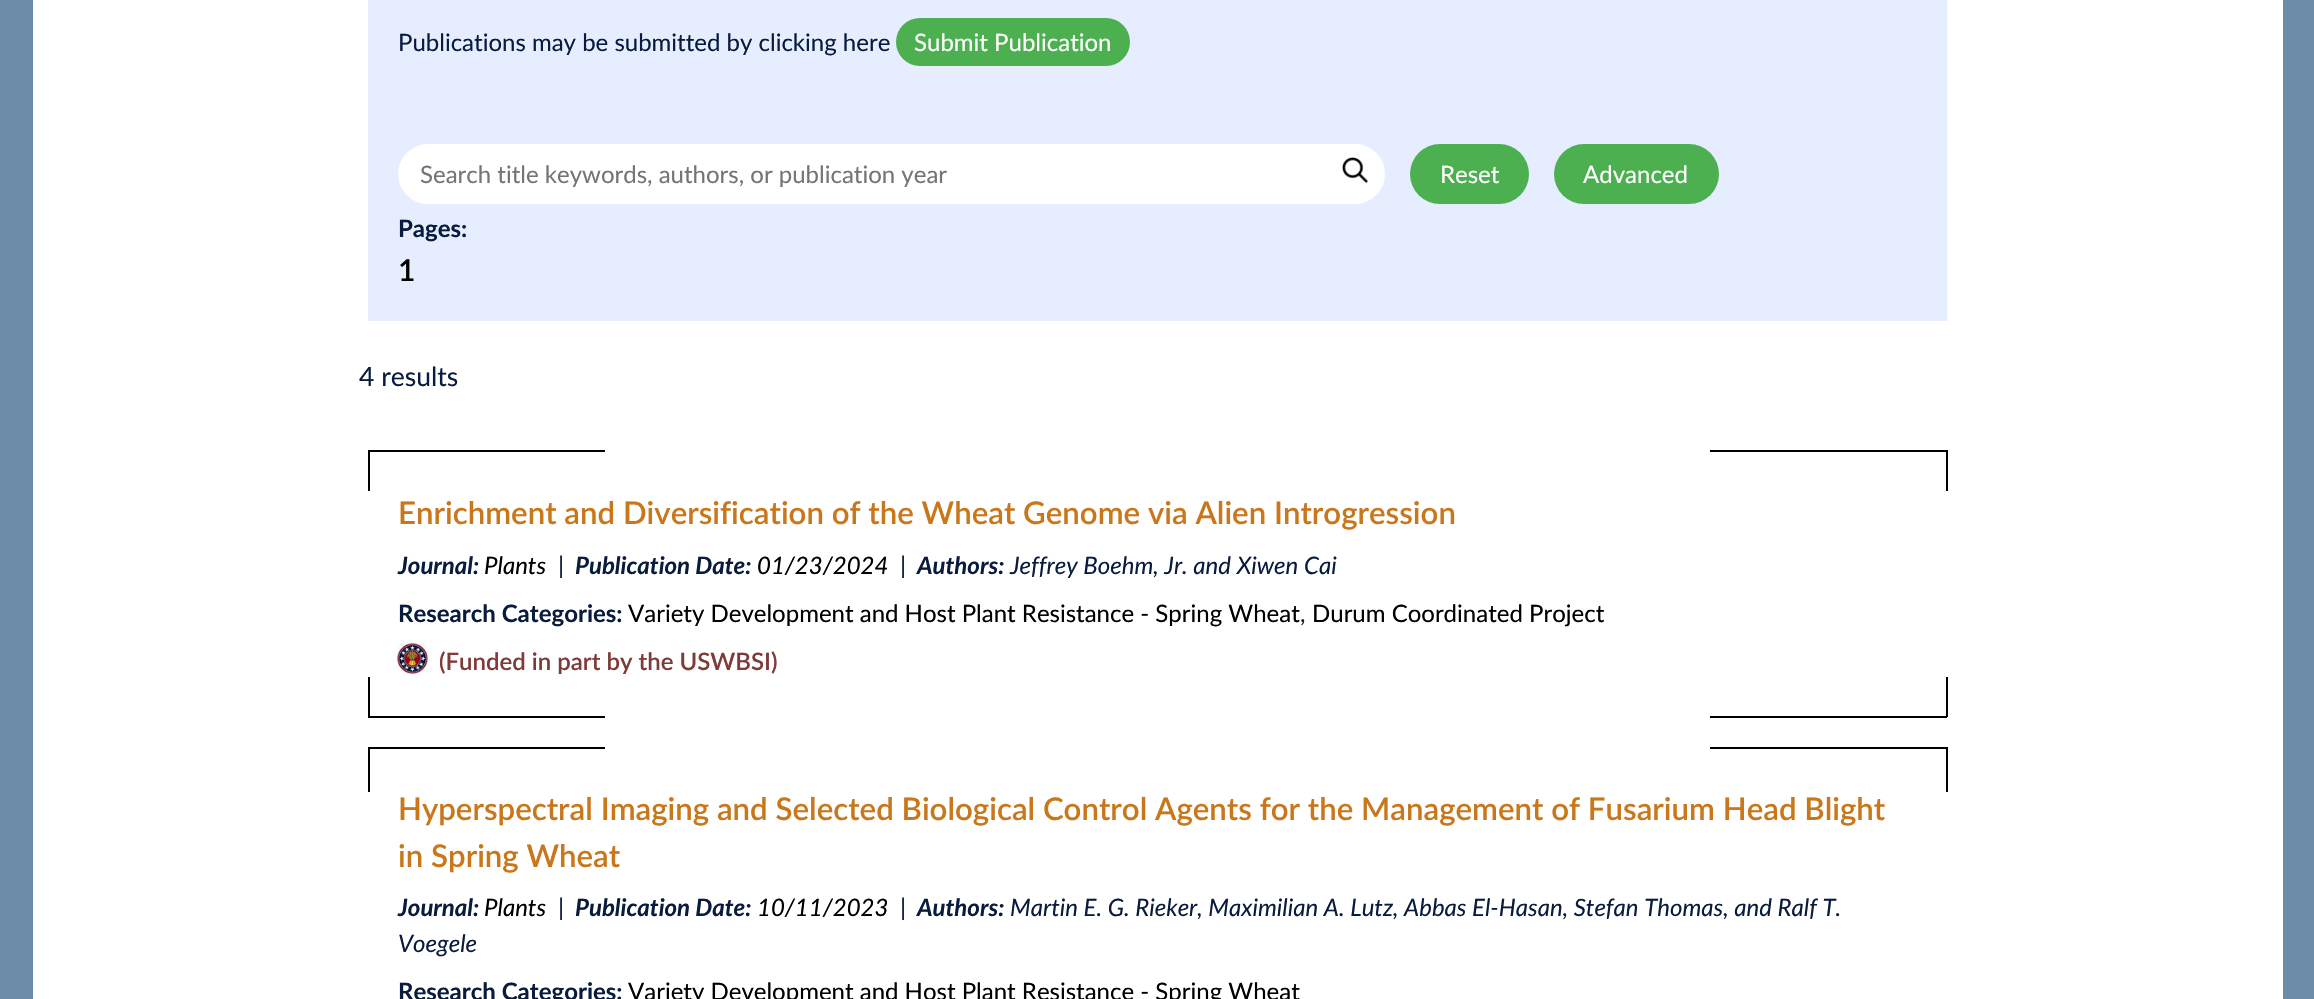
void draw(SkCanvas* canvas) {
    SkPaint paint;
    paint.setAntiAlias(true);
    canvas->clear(0xFF6C8BA6);
    paint.setColor(0xFFFFFFFF);
    canvas->drawRect(SkRect::MakeXYWH(33, 0, 2250, 999), paint);
    paint.setColor(0xFFE5EDFF);
    canvas->drawRect(SkRect::MakeXYWH(368, 0, 1579, 321), paint);
    SkFont font1(fontMgr->matchFamilyStyle("Lato", SkFontStyle::Normal()), 24);
    font1.setSubpixel(true);
    paint.setColor(0xFF091C3E);
    canvas->drawString("Publications may be submitted by clicking here", 398, 51, font1, paint);
    paint.setColor(0xFF4CAF50);
    canvas->drawRoundRect(SkRect::MakeXYWH(896, 18, 234, 48), 24, 24, paint);
    paint.setColor(0xFFFFFFFF);
    canvas->drawString("Submit Publication", 914, 51, font1, paint);
    canvas->drawRoundRect(SkRect::MakeXYWH(398, 144, 987, 60), 30, 30, paint);
    paint.setColor(0xFF757575);
    canvas->drawString("Search title keywords, authors, or publication year", 420, 183, font1, paint);
    canvas->drawImageRect(SkImages::DeferredFromEncodedData(SkData::MakeFromFileName("img1.png")), SkRect::MakeXYWH(1342, 157, 27, 27), SkSamplingOptions());
    paint.setColor(0xFF4CAF50);
    canvas->drawRoundRect(SkRect::MakeXYWH(1410, 144, 119, 60), 30, 30, paint);
    paint.setColor(0xFFFFFFFF);
    canvas->drawString("Reset", 1440, 183, font1, paint);
    paint.setColor(0xFF4CAF50);
    canvas->drawRoundRect(SkRect::MakeXYWH(1554, 144, 165, 60), 30, 30, paint);
    paint.setColor(0xFFFFFFFF);
    canvas->drawString("Advanced", 1583, 183, font1, paint);
    SkFont font2(fontMgr->matchFamilyStyle("Lato", SkFontStyle::Bold()), 24);
    font2.setSubpixel(true);
    paint.setColor(0xFF091C3E);
    canvas->drawString("Pages:", 398, 237, font2, paint);
    SkFont font3(fontMgr->matchFamilyStyle("Lato", SkFontStyle(600, SkFontStyle::kNormal_Width, SkFontStyle::kUpright_Slant)), 30);
    font3.setSubpixel(true);
    paint.setColor(0xFF000000);
    canvas->drawString("1", 398, 281, font3, paint);
    SkFont font4(fontMgr->matchFamilyStyle("Lato", SkFontStyle::Normal()), 26.5f);
    font4.setSubpixel(true);
    paint.setColor(0xFF091C3E);
    canvas->drawString("4 results", 359, 386, font4, paint);
    paint.setColor(0xFF000000);
    canvas->drawRect(SkRect::MakeXYWH(368, 450, 237, 2), paint);
    canvas->drawRect(SkRect::MakeXYWH(368, 450, 2, 41), paint);
    canvas->drawRect(SkRect::MakeXYWH(1710, 450, 237, 2), paint);
    canvas->drawRect(SkRect::MakeXYWH(1946, 450, 2, 41), paint);
    SkFont font5(fontMgr->matchFamilyStyle("Lato", SkFontStyle(600, SkFontStyle::kNormal_Width, SkFontStyle::kUpright_Slant)), 31.2f);
    font5.setSubpixel(true);
    paint.setColor(0xFFC9771A);
    canvas->drawString("Enrichment and Diversification of the Wheat Genome via Alien Introgression", 398, 524, font5, paint);
    SkFont font6(fontMgr->matchFamilyStyle("Lato", SkFontStyle::BoldItalic()), 24);
    font6.setSubpixel(true);
    paint.setColor(0xFF091C3E);
    canvas->drawString("Journal:", 398, 574, font6, paint);
    SkFont font7(fontMgr->matchFamilyStyle("Lato", SkFontStyle::Italic()), 24);
    font7.setSubpixel(true);
    paint.setColor(0xFF000000);
    canvas->drawString("Plants", 484, 574, font7, paint);
    paint.setColor(0xFF091C3E);
    canvas->drawString("|", 558, 574, font7, paint);
    canvas->drawString("Publication Date:", 575, 574, font6, paint);
    paint.setColor(0xFF000000);
    canvas->drawString("01/23/2024", 757, 574, font7, paint);
    paint.setColor(0xFF091C3E);
    canvas->drawString("|", 900, 574, font7, paint);
    canvas->drawString("Authors:", 917, 574, font6, paint);
    canvas->drawString("Jeffrey Boehm, Jr. and Xiwen Cai", 1010, 574, font7, paint);
    canvas->drawString("Research Categories:", 398, 622, font2, paint);
    paint.setColor(0xFF000000);
    canvas->drawString("Variety Development and Host Plant Resistance - Spring Wheat", 628, 622, font1, paint);
    paint.setColor(0xFF091C3E);
    canvas->drawString(",", 1300, 622, font1, paint);
    paint.setColor(0xFF000000);
    canvas->drawString("Durum Coordinated Project", 1312, 622, font1, paint);
    canvas->drawImageRect(SkImages::DeferredFromEncodedData(SkData::MakeFromFileName("img2.png")), SkRect::MakeXYWH(397, 643, 31, 31), SkSamplingOptions());
    SkFont font8(fontMgr->matchFamilyStyle("Lato", SkFontStyle(600, SkFontStyle::kNormal_Width, SkFontStyle::kUpright_Slant)), 24);
    font8.setSubpixel(true);
    paint.setColor(0xFF7F3B37);
    canvas->drawString("(Funded in part by the USWBSI)", 439, 670, font8, paint);
    paint.setColor(0xFF000000);
    canvas->drawRect(SkRect::MakeXYWH(368, 716, 237, 2), paint);
    canvas->drawRect(SkRect::MakeXYWH(368, 677, 2, 40), paint);
    canvas->drawRect(SkRect::MakeXYWH(1946, 677, 2, 40), paint);
    canvas->drawRect(SkRect::MakeXYWH(1710, 716, 237, 2), paint);
    canvas->drawRect(SkRect::MakeXYWH(368, 747, 237, 2), paint);
    canvas->drawRect(SkRect::MakeXYWH(368, 747, 2, 45), paint);
    canvas->drawRect(SkRect::MakeXYWH(1710, 747, 237, 2), paint);
    canvas->drawRect(SkRect::MakeXYWH(1946, 747, 2, 45), paint);
    paint.setColor(0xFFC9771A);
    canvas->drawString("Hyperspectral Imaging and Selected Biological Control Agents for the Management of Fusarium Head Blight", 398, 820, font5, paint);
    canvas->drawString("in Spring Wheat", 398, 867, font5, paint);
    paint.setColor(0xFF091C3E);
    canvas->drawString("Journal:", 398, 916, font6, paint);
    paint.setColor(0xFF000000);
    canvas->drawString("Plants", 484, 916, font7, paint);
    paint.setColor(0xFF091C3E);
    canvas->drawString("|", 558, 916, font7, paint);
    canvas->drawString("Publication Date:", 575, 916, font6, paint);
    paint.setColor(0xFF000000);
    canvas->drawString("10/11/2023", 757, 916, font7, paint);
    paint.setColor(0xFF091C3E);
    canvas->drawString("|", 900, 916, font7, paint);
    canvas->drawString("Authors:", 917, 916, font6, paint);
    canvas->drawString("Martin E. G. Rieker, Maximilian A. Lutz, Abbas El-Hasan, Stefan Thomas, and Ralf T.", 1010, 916, font7, paint);
    canvas->drawString("Voegele", 398, 952, font7, paint);
    canvas->drawString("Research Categories:", 398, 1000, font2, paint);
    paint.setColor(0xFF000000);
    canvas->drawString("Variety Development and Host Plant Resistance - Spring Wheat", 628, 1000, font1, paint);
}
